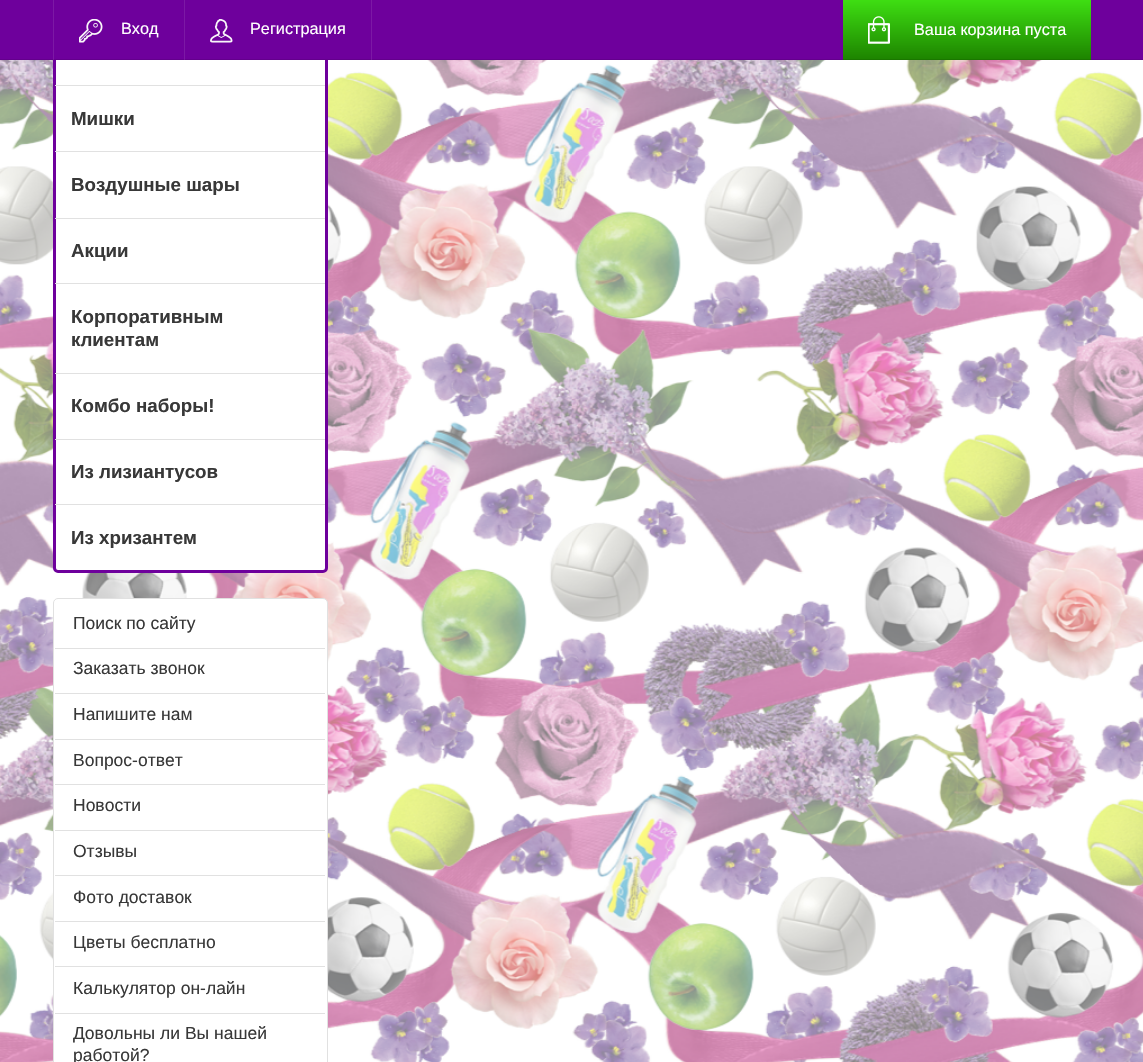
void draw(SkCanvas* canvas) {
    SkPaint paint;
    paint.setAntiAlias(true);
    canvas->clear(0xFFFFFFFF);
    canvas->drawImageRect(SkImages::DeferredFromEncodedData(SkData::MakeFromFileName("img1.png")), SkRect::MakeXYWH(0, 60, 1143, 1002), SkSamplingOptions());
    paint.setColor(0xFFFFFFFF);
    canvas->drawRoundRect(SkRect::MakeXYWH(54.5f, -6.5f, 272, 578), 3.5f, 3.5f, paint);
    paint.setStyle(SkPaint::kStroke_Style);
    paint.setStrokeWidth(3);
    paint.setColor(0xFF6E009C);
    canvas->drawRoundRect(SkRect::MakeXYWH(54.5f, -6.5f, 272, 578), 3.5f, 3.5f, paint);
    paint.setStyle(SkPaint::kFill_Style);
    canvas->drawRect(SkRect::MakeXYWH(0, 0, 1143, 59), paint);
    paint.setColor(0xFF63008C);
    canvas->drawRect(SkRect::MakeXYWH(0, 59, 1143, 1), paint);
    paint.setColor(0x1AFAFAFA);
    canvas->drawRect(SkRect::MakeXYWH(53, 0, 1, 60), paint);
    canvas->drawImageRect(SkImages::DeferredFromEncodedData(SkData::MakeFromFileName("img2.png")), SkRect::MakeXYWH(79, 19, 24, 24), SkSamplingOptions());
    canvas->drawRect(SkRect::MakeXYWH(184, 0, 1, 60), paint);
    SkFont font1(fontMgr->matchFamilyStyle("Liberation Sans", SkFontStyle::Normal()), 16.25f);
    font1.setSubpixel(true);
    paint.setColor(0xFFFFFFFF);
    canvas->drawString("Вход", 121, 34, font1, paint);
    canvas->drawImageRect(SkImages::DeferredFromEncodedData(SkData::MakeFromFileName("img3.png")), SkRect::MakeXYWH(210, 19, 23, 24), SkSamplingOptions());
    paint.setColor(0x1AFAFAFA);
    canvas->drawRect(SkRect::MakeXYWH(371, 0, 1, 60), paint);
    paint.setColor(0xFFFFFFFF);
    canvas->drawString("Регистрация", 250, 34, font1, paint);
    {
        const SkColor colors[] = {0xFF1D8300, 0xFF3EDE12};
        const float stops[] = {0, 1};
        const SkPoint ends[] = {{967, 60}, {967, 0}};
        paint.setShader(SkGradientShader::MakeLinear(ends, colors, stops, 2, SkTileMode::kClamp));
        paint.setAlpha(255);
    }
    canvas->drawRect(SkRect::MakeXYWH(843, 0, 248, 59), paint);
    paint.setShader(nullptr);
    paint.setColor(0xFF1A7700);
    canvas->drawRect(SkRect::MakeXYWH(843, 59, 248, 1), paint);
    canvas->drawImageRect(SkImages::DeferredFromEncodedData(SkData::MakeFromFileName("img4.png")), SkRect::MakeXYWH(868, 16, 22, 28), SkSamplingOptions());
    paint.setColor(0xFFFFFFFF);
    canvas->drawString("Ваша корзина пуста", 914, 35, font1, paint);
    paint.setColor(0xFFE1E1E1);
    canvas->drawRect(SkRect::MakeXYWH(55, 85, 270, 1), paint);
    SkFont font2(fontMgr->matchFamilyStyle("Liberation Sans", SkFontStyle::Bold()), 18.75f);
    font2.setSubpixel(true);
    paint.setColor(0xFF383838);
    canvas->drawString("Мишки", 71, 125, font2, paint);
    paint.setColor(0xFFE1E1E1);
    canvas->drawRect(SkRect::MakeXYWH(55, 151, 270, 1), paint);
    paint.setColor(0xFF383838);
    canvas->drawString("Воздушные шары", 71, 191, font2, paint);
    paint.setColor(0xFFE1E1E1);
    canvas->drawRect(SkRect::MakeXYWH(55, 218, 270, 1), paint);
    paint.setColor(0xFF383838);
    canvas->drawString("Акции", 71, 257, font2, paint);
    paint.setColor(0xFFE1E1E1);
    canvas->drawRect(SkRect::MakeXYWH(55, 283, 270, 1), paint);
    paint.setColor(0xFF383838);
    canvas->drawString("Корпоративным", 71, 323, font2, paint);
    canvas->drawString("клиентам", 71, 346, font2, paint);
    paint.setColor(0xFFE1E1E1);
    canvas->drawRect(SkRect::MakeXYWH(55, 373, 270, 1), paint);
    paint.setColor(0xFF383838);
    canvas->drawString("Комбо наборы!", 71, 412, font2, paint);
    paint.setColor(0xFFE1E1E1);
    canvas->drawRect(SkRect::MakeXYWH(55, 439, 270, 1), paint);
    paint.setColor(0xFF383838);
    canvas->drawString("Из лизиантусов", 71, 478, font2, paint);
    paint.setColor(0xFFE1E1E1);
    canvas->drawRect(SkRect::MakeXYWH(55, 504, 270, 1), paint);
    paint.setColor(0xFF383838);
    canvas->drawString("Из хризантем", 71, 544, font2, paint);
    paint.setColor(0xFFFFFFFF);
    canvas->drawRoundRect(SkRect::MakeXYWH(53.5f, 598.5f, 274, 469), 4.5f, 4.5f, paint);
    paint.setStyle(SkPaint::kStroke_Style);
    paint.setStrokeWidth(1);
    paint.setColor(0xFFE1E1E1);
    canvas->drawRoundRect(SkRect::MakeXYWH(53.5f, 598.5f, 274, 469), 4.5f, 4.5f, paint);
    SkFont font3(fontMgr->matchFamilyStyle("Liberation Sans", SkFontStyle::Normal()), 17.5f);
    font3.setSubpixel(true);
    paint.setStyle(SkPaint::kFill_Style);
    paint.setColor(0xFF383838);
    canvas->drawString("Поиск по сайту", 73, 629, font3, paint);
    paint.setColor(0xFFE1E1E1);
    canvas->drawRect(SkRect::MakeXYWH(55, 648, 270, 1), paint);
    paint.setColor(0xFF383838);
    canvas->drawString("Заказать звонок", 73, 674, font3, paint);
    paint.setColor(0xFFE1E1E1);
    canvas->drawRect(SkRect::MakeXYWH(55, 693, 270, 1), paint);
    paint.setColor(0xFF383838);
    canvas->drawString("Напишите нам", 73, 720, font3, paint);
    paint.setColor(0xFFE1E1E1);
    canvas->drawRect(SkRect::MakeXYWH(55, 739, 270, 1), paint);
    paint.setColor(0xFF383838);
    canvas->drawString("Вопрос-ответ", 73, 766, font3, paint);
    paint.setColor(0xFFE1E1E1);
    canvas->drawRect(SkRect::MakeXYWH(55, 784, 270, 1), paint);
    paint.setColor(0xFF383838);
    canvas->drawString("Новости", 73, 811, font3, paint);
    paint.setColor(0xFFE1E1E1);
    canvas->drawRect(SkRect::MakeXYWH(55, 830, 270, 1), paint);
    paint.setColor(0xFF383838);
    canvas->drawString("Отзывы", 73, 857, font3, paint);
    paint.setColor(0xFFE1E1E1);
    canvas->drawRect(SkRect::MakeXYWH(55, 875, 270, 1), paint);
    paint.setColor(0xFF383838);
    canvas->drawString("Фото доставок", 73, 903, font3, paint);
    paint.setColor(0xFFE1E1E1);
    canvas->drawRect(SkRect::MakeXYWH(55, 921, 270, 1), paint);
    paint.setColor(0xFF383838);
    canvas->drawString("Цветы бесплатно", 73, 948, font3, paint);
    paint.setColor(0xFFE1E1E1);
    canvas->drawRect(SkRect::MakeXYWH(55, 966, 270, 1), paint);
    paint.setColor(0xFF383838);
    canvas->drawString("Калькулятор он-лайн", 73, 994, font3, paint);
    paint.setColor(0xFFE1E1E1);
    canvas->drawRect(SkRect::MakeXYWH(55, 1013, 270, 1), paint);
    paint.setColor(0xFF383838);
    canvas->drawString("Довольны ли Вы нашей", 73, 1039, font3, paint);
    canvas->drawString("работой?", 73, 1061, font3, paint);
}
